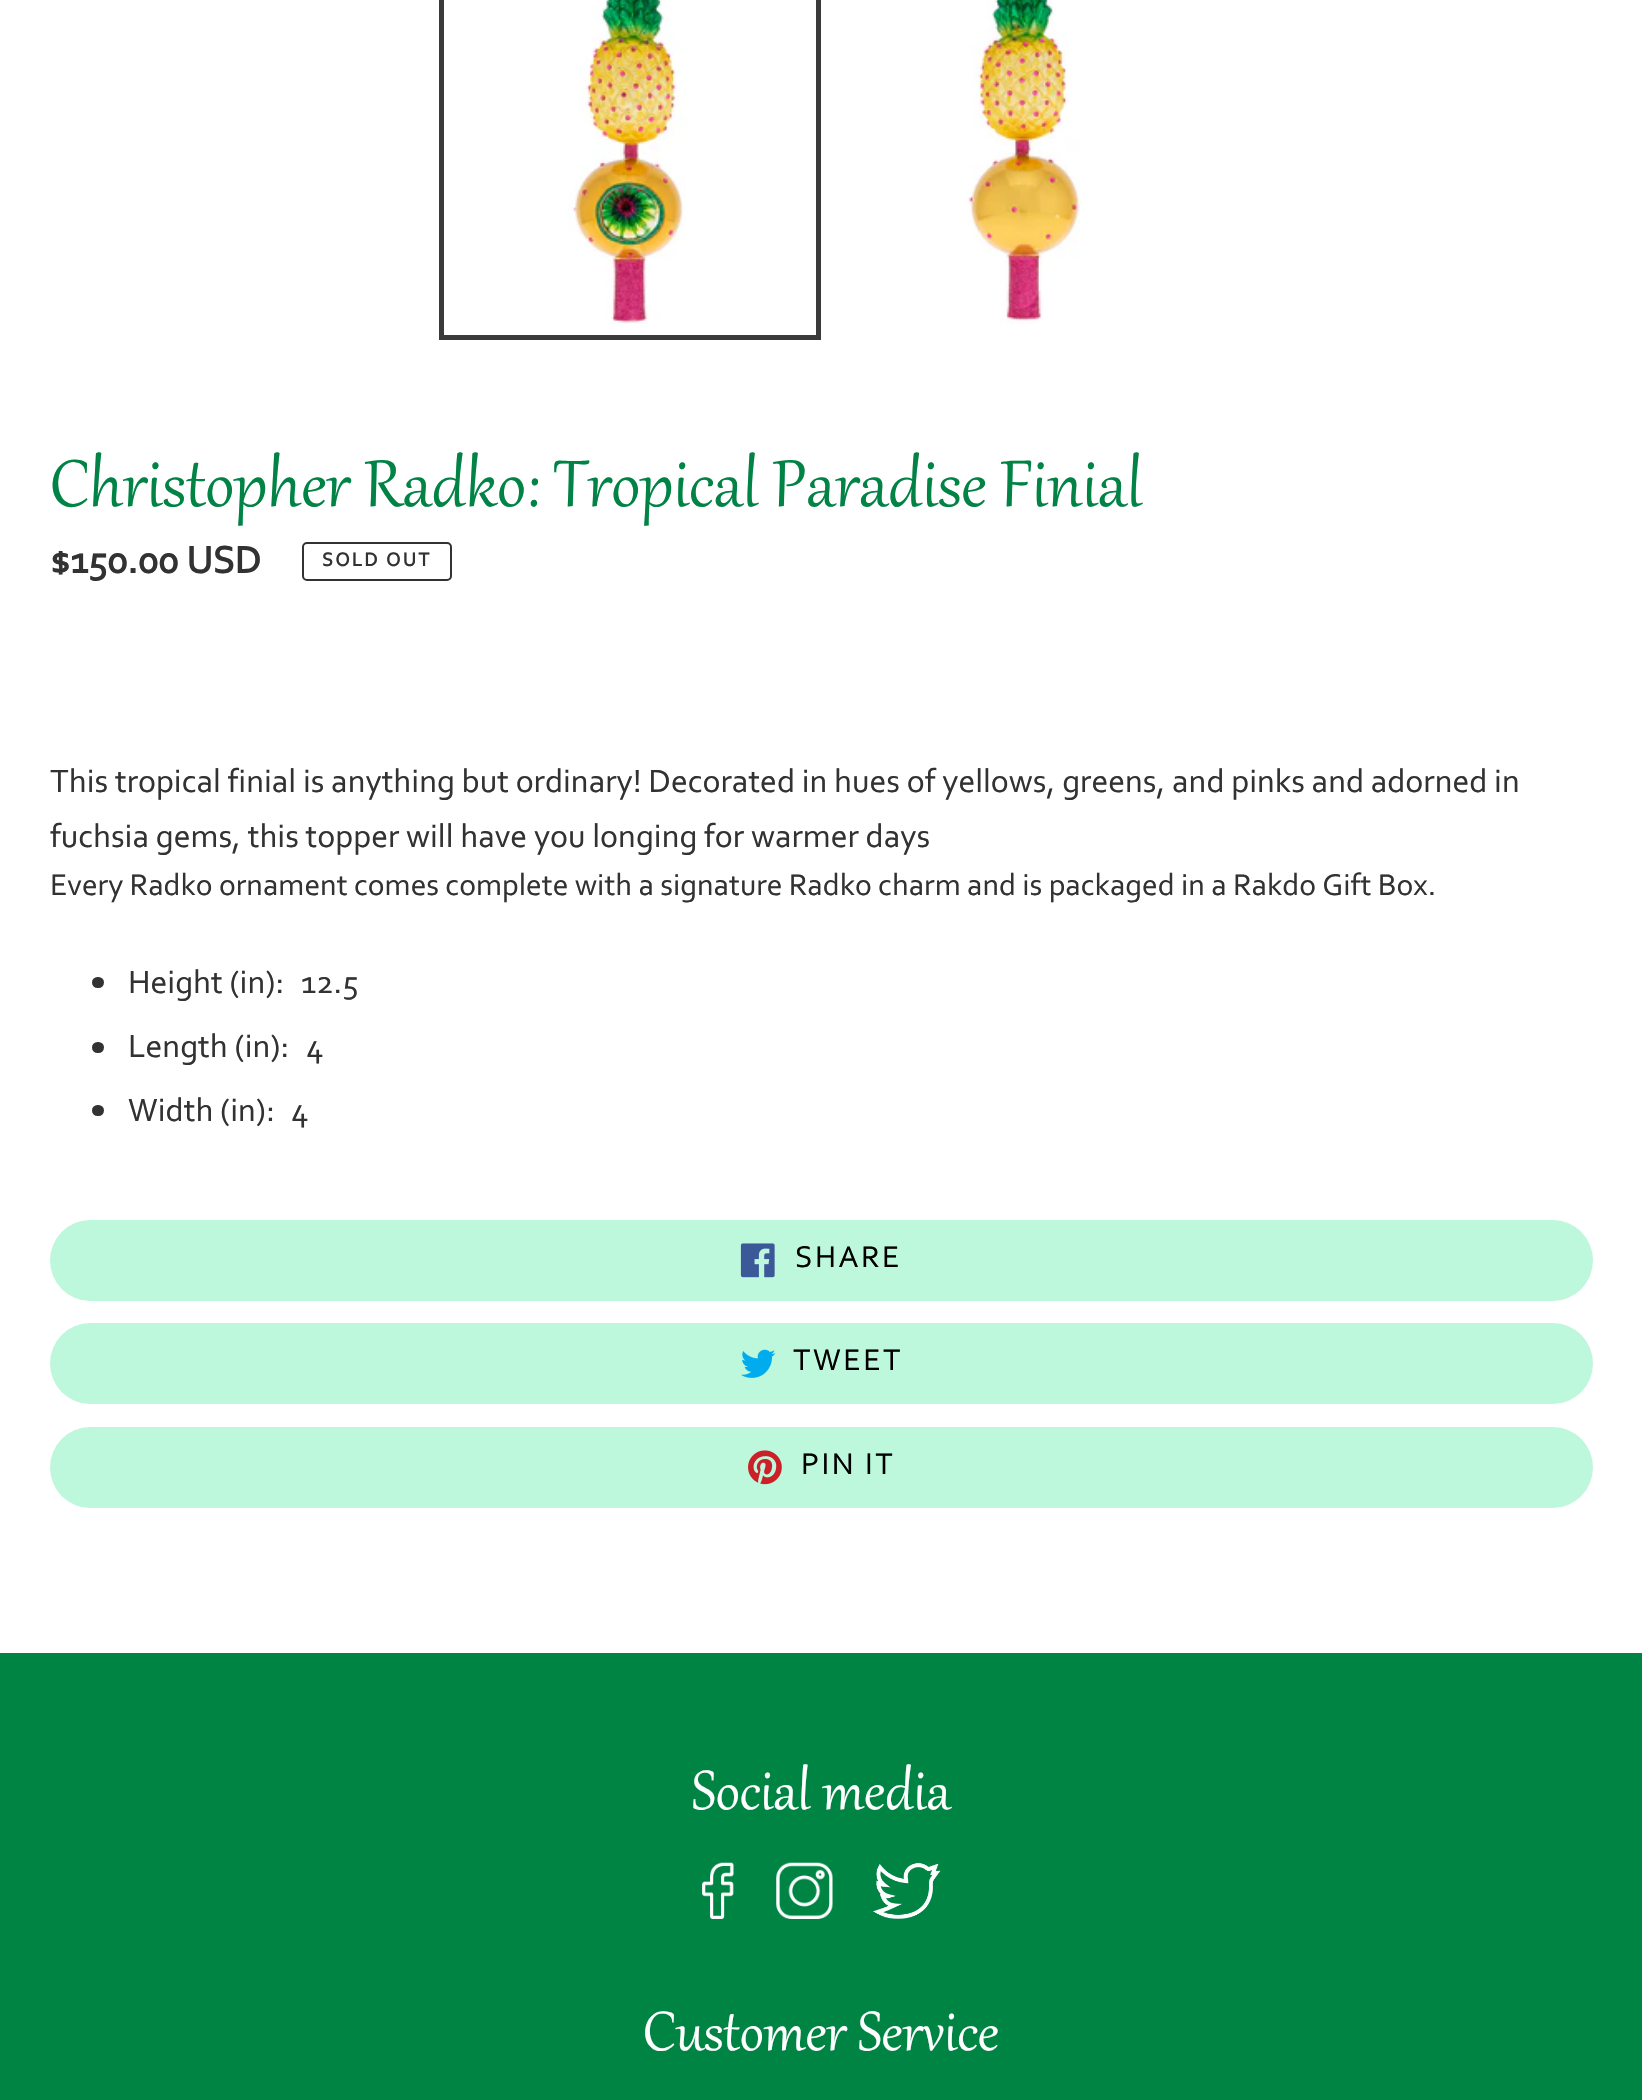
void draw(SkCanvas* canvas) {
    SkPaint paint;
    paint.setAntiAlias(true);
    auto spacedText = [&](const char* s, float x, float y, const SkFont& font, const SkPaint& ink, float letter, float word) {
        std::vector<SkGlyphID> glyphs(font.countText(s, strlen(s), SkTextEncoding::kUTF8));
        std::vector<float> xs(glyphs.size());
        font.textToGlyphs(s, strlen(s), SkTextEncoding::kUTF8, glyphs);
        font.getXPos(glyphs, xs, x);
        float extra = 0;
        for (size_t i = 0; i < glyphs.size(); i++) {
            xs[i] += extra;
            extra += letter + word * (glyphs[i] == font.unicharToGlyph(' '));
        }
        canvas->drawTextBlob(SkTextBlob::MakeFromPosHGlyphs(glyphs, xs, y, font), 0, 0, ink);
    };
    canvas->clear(0xFFFFFFFF);
    paint.setStyle(SkPaint::kStroke_Style);
    paint.setStrokeWidth(5);
    paint.setColor(0xFF3A3A3A);
    canvas->drawRect(SkRect::MakeXYWH(441.5f, -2.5f, 377, 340), paint);
    canvas->drawImageRect(SkImages::DeferredFromEncodedData(SkData::MakeFromFileName("img1.png")), SkRect::MakeXYWH(567, 0, 119, 324), SkSamplingOptions());
    canvas->drawImageRect(SkImages::DeferredFromEncodedData(SkData::MakeFromFileName("img2.png")), SkRect::MakeXYWH(967, 0, 114, 324), SkSamplingOptions());
    SkFont font1(fontMgr->matchFamilyStyle("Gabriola", SkFontStyle::Normal()), 81);
    font1.setSubpixel(true);
    paint.setStyle(SkPaint::kFill_Style);
    paint.setColor(0xFF008345);
    canvas->drawString("Christopher Radko: Tropical Paradise Finial", 50, 506, font1, paint);
    SkFont font2(fontMgr->matchFamilyStyle("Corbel", SkFontStyle::Bold()), 39.5f);
    font2.setSubpixel(true);
    paint.setColor(0xFF333232);
    canvas->drawString("$150.00 USD", 50, 573, font2, paint);
    paint.setStyle(SkPaint::kStroke_Style);
    paint.setStrokeWidth(2);
    canvas->drawRoundRect(SkRect::MakeXYWH(303, 543, 148, 37), 4, 4, paint);
    SkFont font3(fontMgr->matchFamilyStyle("Corbel", SkFontStyle::Bold()), 19.75f);
    font3.setSubpixel(true);
    paint.setStyle(SkPaint::kFill_Style);
    spacedText("SOLD OUT", 322, 566, font3, paint, 2.25f, 0);
    SkFont font4(fontMgr->matchFamilyStyle("Corbel", SkFontStyle::Normal()), 33.75f);
    font4.setSubpixel(true);
    canvas->drawString("This tropical finial is anything but ordinary! Decorated in hues of yellows, greens, and pinks and adorned in", 50, 792, font4, paint);
    canvas->drawString("fuchsia gems, this topper will have you longing for warmer days", 50, 847, font4, paint);
    SkFont font5(fontMgr->matchFamilyStyle("Corbel", SkFontStyle::Normal()), 31.5f);
    font5.setSubpixel(true);
    canvas->drawString("Every Radko ornament comes complete with a signature Radko charm and is packaged in a Rakdo Gift Box.", 50, 895, font5, paint);
    canvas->drawRoundRect(SkRect::MakeXYWH(92, 977, 12, 11), 5.5f, 5.5f, paint);
    canvas->drawString("Height (in):", 128, 993, font4, paint);
    canvas->drawString("12.5", 301, 993, font4, paint);
    canvas->drawRoundRect(SkRect::MakeXYWH(92, 1042, 12, 11), 5.5f, 5.5f, paint);
    canvas->drawString("Length (in):", 128, 1057, font4, paint);
    canvas->drawString("4", 306, 1057, font4, paint);
    canvas->drawRoundRect(SkRect::MakeXYWH(92, 1105, 12, 11), 5.5f, 5.5f, paint);
    canvas->drawString("Width (in):", 128, 1121, font4, paint);
    canvas->drawString("4", 291, 1121, font4, paint);
    paint.setColor(0xFFBDF7DC);
    canvas->drawRoundRect(SkRect::MakeXYWH(50, 1220, 1543, 81), 40.5f, 40.5f, paint);
    canvas->drawImageRect(SkImages::DeferredFromEncodedData(SkData::MakeFromFileName("img3.png")), SkRect::MakeXYWH(740, 1243, 35, 35), SkSamplingOptions());
    paint.setColor(0xFF000000);
    spacedText("SHARE", 795, 1267, font5, paint, 2.5f, 0);
    paint.setColor(0xFFBDF7DC);
    canvas->drawRoundRect(SkRect::MakeXYWH(50, 1323, 1543, 81), 40.5f, 40.5f, paint);
    canvas->drawImageRect(SkImages::DeferredFromEncodedData(SkData::MakeFromFileName("img4.png")), SkRect::MakeXYWH(741, 1349, 35, 29), SkSamplingOptions());
    paint.setColor(0xFF000000);
    spacedText("TWEET", 793, 1370, font5, paint, 2.5f, 0);
    paint.setColor(0xFFBDF7DC);
    canvas->drawRoundRect(SkRect::MakeXYWH(50, 1427, 1543, 81), 40.5f, 40.5f, paint);
    canvas->drawImageRect(SkImages::DeferredFromEncodedData(SkData::MakeFromFileName("img5.png")), SkRect::MakeXYWH(748, 1450, 34, 35), SkSamplingOptions());
    paint.setColor(0xFF000000);
    spacedText("PIN IT", 801, 1474, font5, paint, 2.5f, 0);
    paint.setColor(0xFF008443);
    canvas->drawRect(SkRect::MakeXYWH(0, 1653, 1642, 447), paint);
    SkFont font6(fontMgr->matchFamilyStyle("Gabriola", SkFontStyle::Normal()), 67.5f);
    font6.setSubpixel(true);
    paint.setColor(0xFFFFFFFF);
    canvas->drawString("Social media", 692, 1809, font6, paint);
    canvas->drawImageRect(SkImages::DeferredFromEncodedData(SkData::MakeFromFileName("img6.png")), SkRect::MakeXYWH(702, 1862, 32, 57), SkSamplingOptions());
    canvas->drawImageRect(SkImages::DeferredFromEncodedData(SkData::MakeFromFileName("img7.png")), SkRect::MakeXYWH(776, 1862, 57, 57), SkSamplingOptions());
    canvas->drawImageRect(SkImages::DeferredFromEncodedData(SkData::MakeFromFileName("img8.png")), SkRect::MakeXYWH(873, 1862, 68, 57), SkSamplingOptions());
    canvas->drawString("Customer Service", 643, 2050, font6, paint);
}
